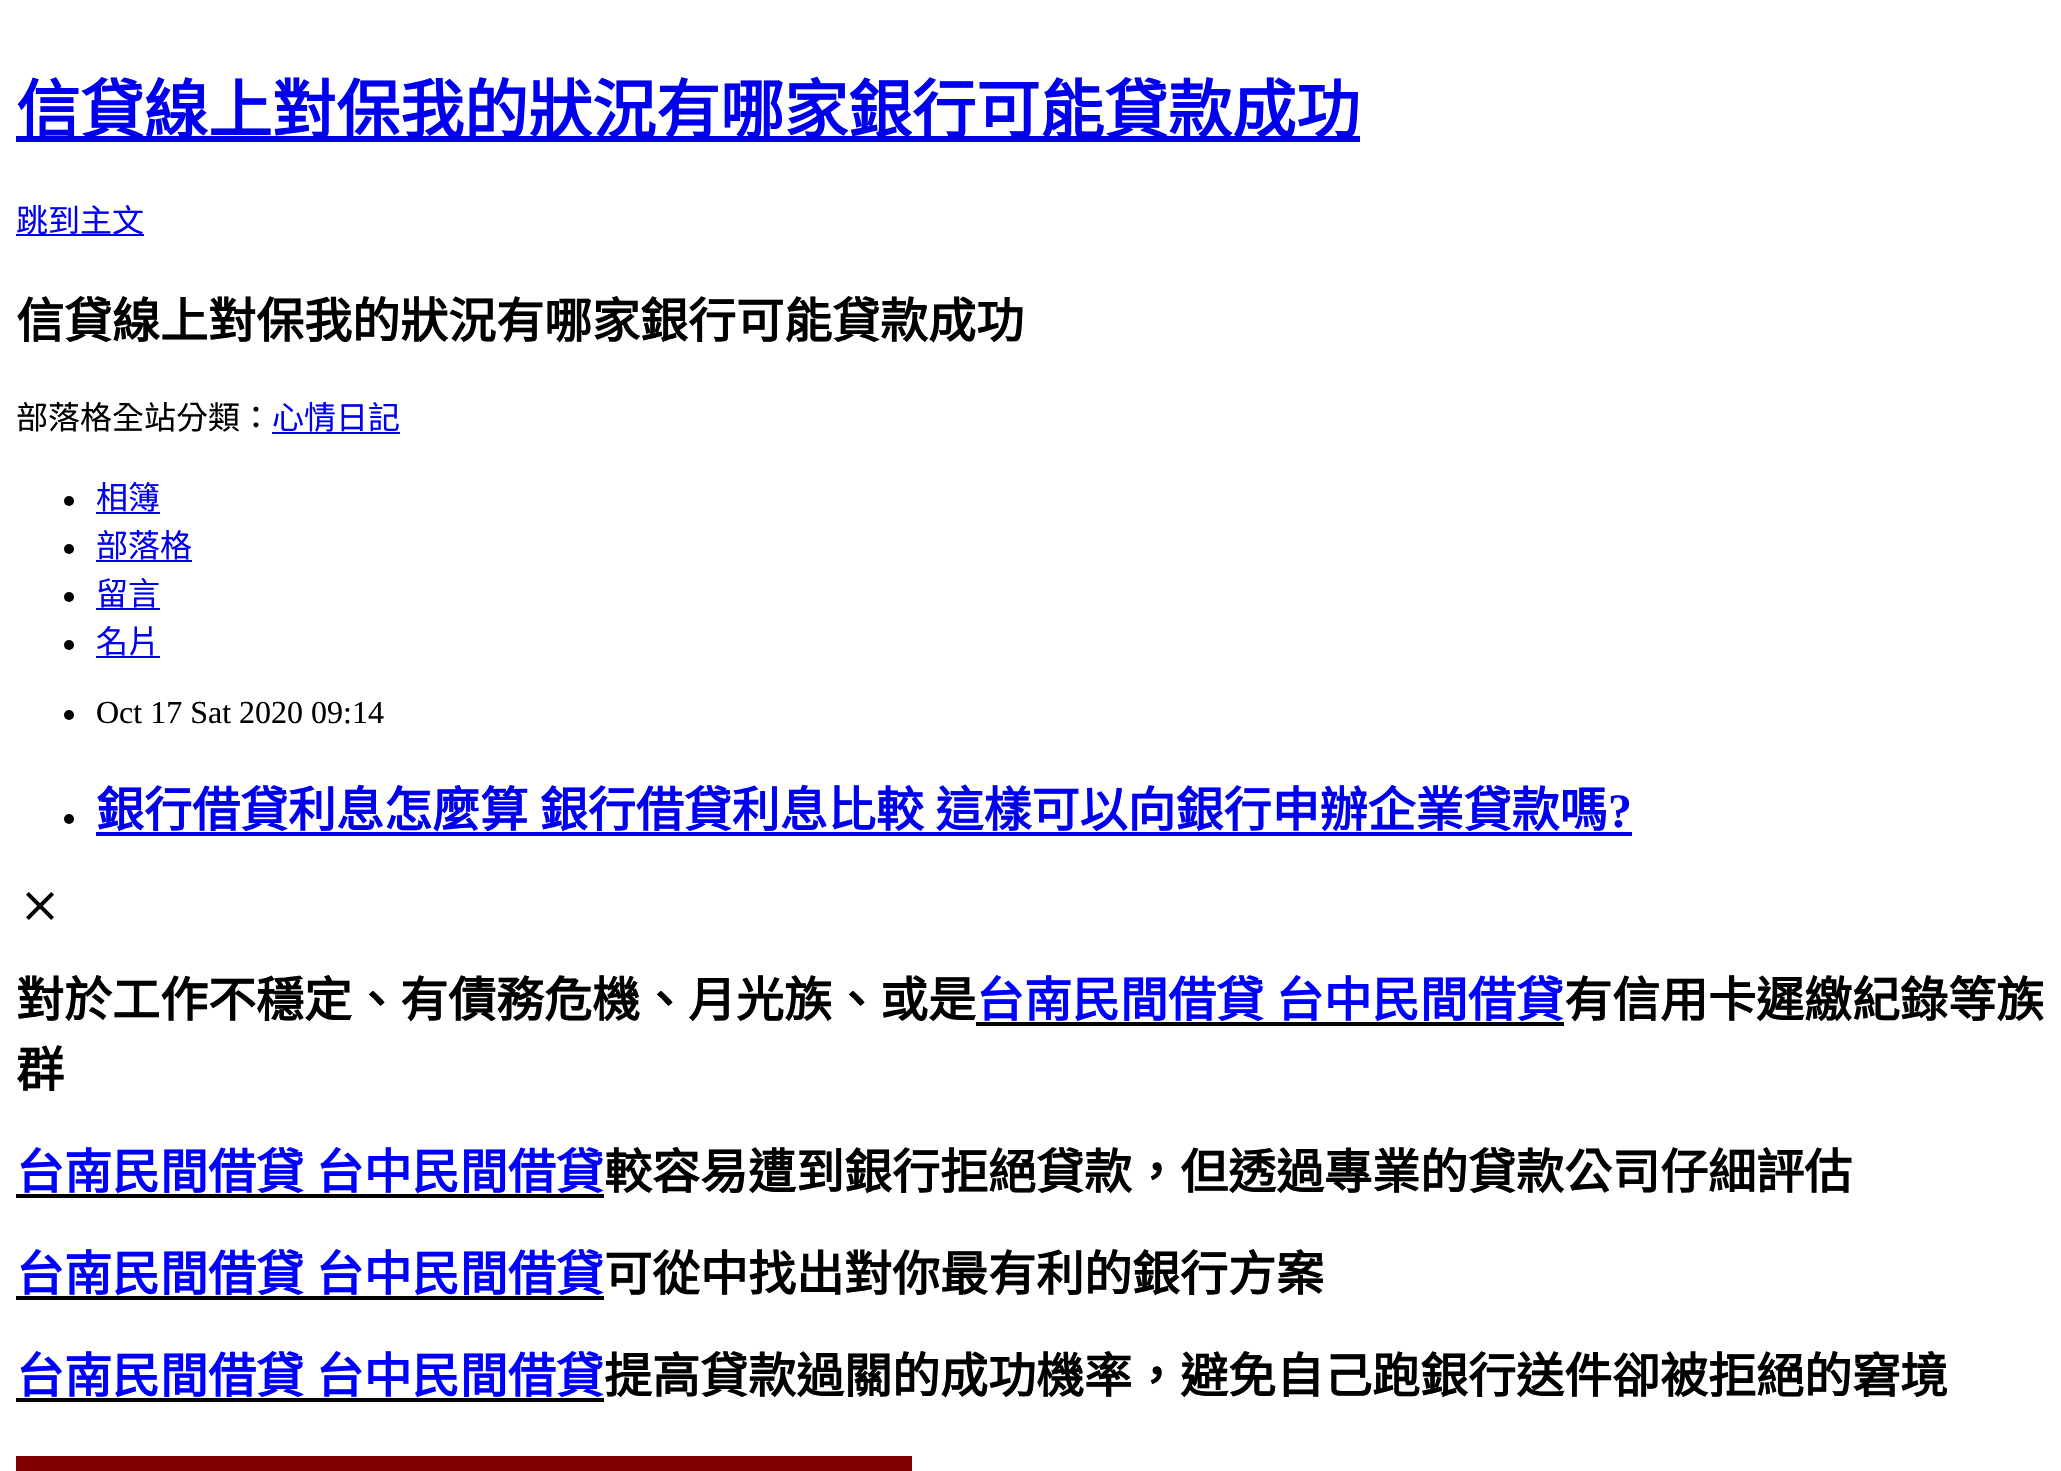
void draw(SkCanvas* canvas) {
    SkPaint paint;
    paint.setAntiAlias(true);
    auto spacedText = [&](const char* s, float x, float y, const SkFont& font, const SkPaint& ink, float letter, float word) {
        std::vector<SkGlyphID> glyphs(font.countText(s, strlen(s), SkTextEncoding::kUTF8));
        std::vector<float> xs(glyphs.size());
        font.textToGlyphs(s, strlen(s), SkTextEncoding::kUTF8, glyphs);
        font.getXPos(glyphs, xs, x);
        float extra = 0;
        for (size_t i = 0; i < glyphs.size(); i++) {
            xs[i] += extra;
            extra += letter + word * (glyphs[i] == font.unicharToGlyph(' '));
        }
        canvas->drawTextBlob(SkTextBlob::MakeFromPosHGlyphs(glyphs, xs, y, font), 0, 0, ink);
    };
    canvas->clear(0xFFFFFFFF);
    paint.setColor(0xFF0000EE);
    canvas->drawRect(SkRect::MakeXYWH(16, 136, 1344, 6), paint);
    SkFont font1(fontMgr->matchFamilyStyle("Noto Sans CJK TC", SkFontStyle::Bold()), 64);
    font1.setSubpixel(true);
    canvas->drawString("信貸線上對保我的狀況有哪家銀行可能貸款成功", 16, 133, font1, paint);
    canvas->drawRect(SkRect::MakeXYWH(16, 234, 128, 2), paint);
    SkFont font2(fontMgr->matchFamilyStyle("Noto Sans CJK TC", SkFontStyle::Normal()), 32);
    font2.setSubpixel(true);
    canvas->drawString("跳到主文", 16, 232, font2, paint);
    SkFont font3(fontMgr->matchFamilyStyle("Noto Sans CJK TC", SkFontStyle::Bold()), 48);
    font3.setSubpixel(true);
    paint.setColor(0xFF000000);
    canvas->drawString("信貸線上對保我的狀況有哪家銀行可能貸款成功", 16, 338, font3, paint);
    canvas->drawString("部落格全站分類：", 16, 429, font2, paint);
    paint.setColor(0xFF0000EE);
    canvas->drawString("心情日記", 272, 429, font2, paint);
    canvas->drawRect(SkRect::MakeXYWH(272, 432, 128, 2), paint);
    paint.setColor(0xFF000000);
    canvas->drawCircle(69, 501, 5, paint);
    paint.setColor(0xFF0000EE);
    canvas->drawString("相簿", 96, 509, font2, paint);
    canvas->drawRect(SkRect::MakeXYWH(96, 512, 64, 2), paint);
    paint.setColor(0xFF000000);
    canvas->drawCircle(69, 549, 5, paint);
    paint.setColor(0xFF0000EE);
    canvas->drawString("部落格", 96, 557, font2, paint);
    canvas->drawRect(SkRect::MakeXYWH(96, 560, 96, 2), paint);
    paint.setColor(0xFF000000);
    canvas->drawCircle(69, 597, 5, paint);
    paint.setColor(0xFF0000EE);
    canvas->drawString("留言", 96, 605, font2, paint);
    canvas->drawRect(SkRect::MakeXYWH(96, 608, 64, 2), paint);
    paint.setColor(0xFF000000);
    canvas->drawCircle(69, 645, 5, paint);
    paint.setColor(0xFF0000EE);
    canvas->drawString("名片", 96, 653, font2, paint);
    canvas->drawRect(SkRect::MakeXYWH(96, 656, 64, 2), paint);
    paint.setColor(0xFF000000);
    canvas->drawCircle(69, 715, 5, paint);
    SkFont font4(fontMgr->matchFamilyStyle("Liberation Serif", SkFontStyle::Normal()), 32);
    font4.setSubpixel(true);
    canvas->drawString("Oct 17 Sat 2020 09:14", 96, 723, font4, paint);
    canvas->drawCircle(69, 819, 5, paint);
    paint.setColor(0xFF0000EE);
    spacedText("銀行借貸利息怎麼算 銀行借貸利息比較 這樣可以向銀行申辦企業貸款嗎", 96, 827, font3, paint, 0, 1);
    SkFont font5(fontMgr->matchFamilyStyle("Liberation Serif", SkFontStyle::Bold()), 48);
    font5.setSubpixel(true);
    canvas->drawString("?", 1608, 827, font5, paint);
    canvas->drawRect(SkRect::MakeXYWH(96, 832, 1536, 4), paint);
    canvas->drawImageRect(SkImages::DeferredFromEncodedData(SkData::MakeFromFileName("img1.png")), SkRect::MakeXYWH(26, 892, 28, 28), SkSamplingOptions());
    paint.setColor(0xFF000000);
    canvas->drawString("對於工作不穩定、有債務危機、月光族、或是", 16, 1017, font3, paint);
    paint.setColor(0xFF0000FF);
    spacedText("台南民間借貸 台中民間借貸", 976, 1017, font3, paint, 0, 1);
    paint.setColor(0xFF000000);
    canvas->drawRect(SkRect::MakeXYWH(976, 1022, 588, 4), paint);
    canvas->drawString("有信用卡遲繳紀錄等族", 1564, 1017, font3, paint);
    canvas->drawString("群", 16, 1087, font3, paint);
    paint.setColor(0xFF0000FF);
    spacedText("台南民間借貸 台中民間借貸", 16, 1189, font3, paint, 0, 1);
    paint.setColor(0xFF000000);
    canvas->drawRect(SkRect::MakeXYWH(16, 1194, 588, 4), paint);
    canvas->drawString("較容易遭到銀行拒絕貸款，但透過專業的貸款公司仔細評估", 604, 1189, font3, paint);
    paint.setColor(0xFF0000FF);
    spacedText("台南民間借貸 台中民間借貸", 16, 1291, font3, paint, 0, 1);
    paint.setColor(0xFF000000);
    canvas->drawRect(SkRect::MakeXYWH(16, 1296, 588, 4), paint);
    canvas->drawString("可從中找出對你最有利的銀行方案", 604, 1291, font3, paint);
    paint.setColor(0xFF0000FF);
    spacedText("台南民間借貸 台中民間借貸", 16, 1393, font3, paint, 0, 1);
    paint.setColor(0xFF000000);
    canvas->drawRect(SkRect::MakeXYWH(16, 1398, 588, 4), paint);
    canvas->drawString("提高貸款過關的成功機率，避免自己跑銀行送件卻被拒絕的窘境", 604, 1393, font3, paint);
    paint.setColor(0xFF800000);
    canvas->drawRect(SkRect::MakeXYWH(16, 1456, 896, 15), paint);
}
